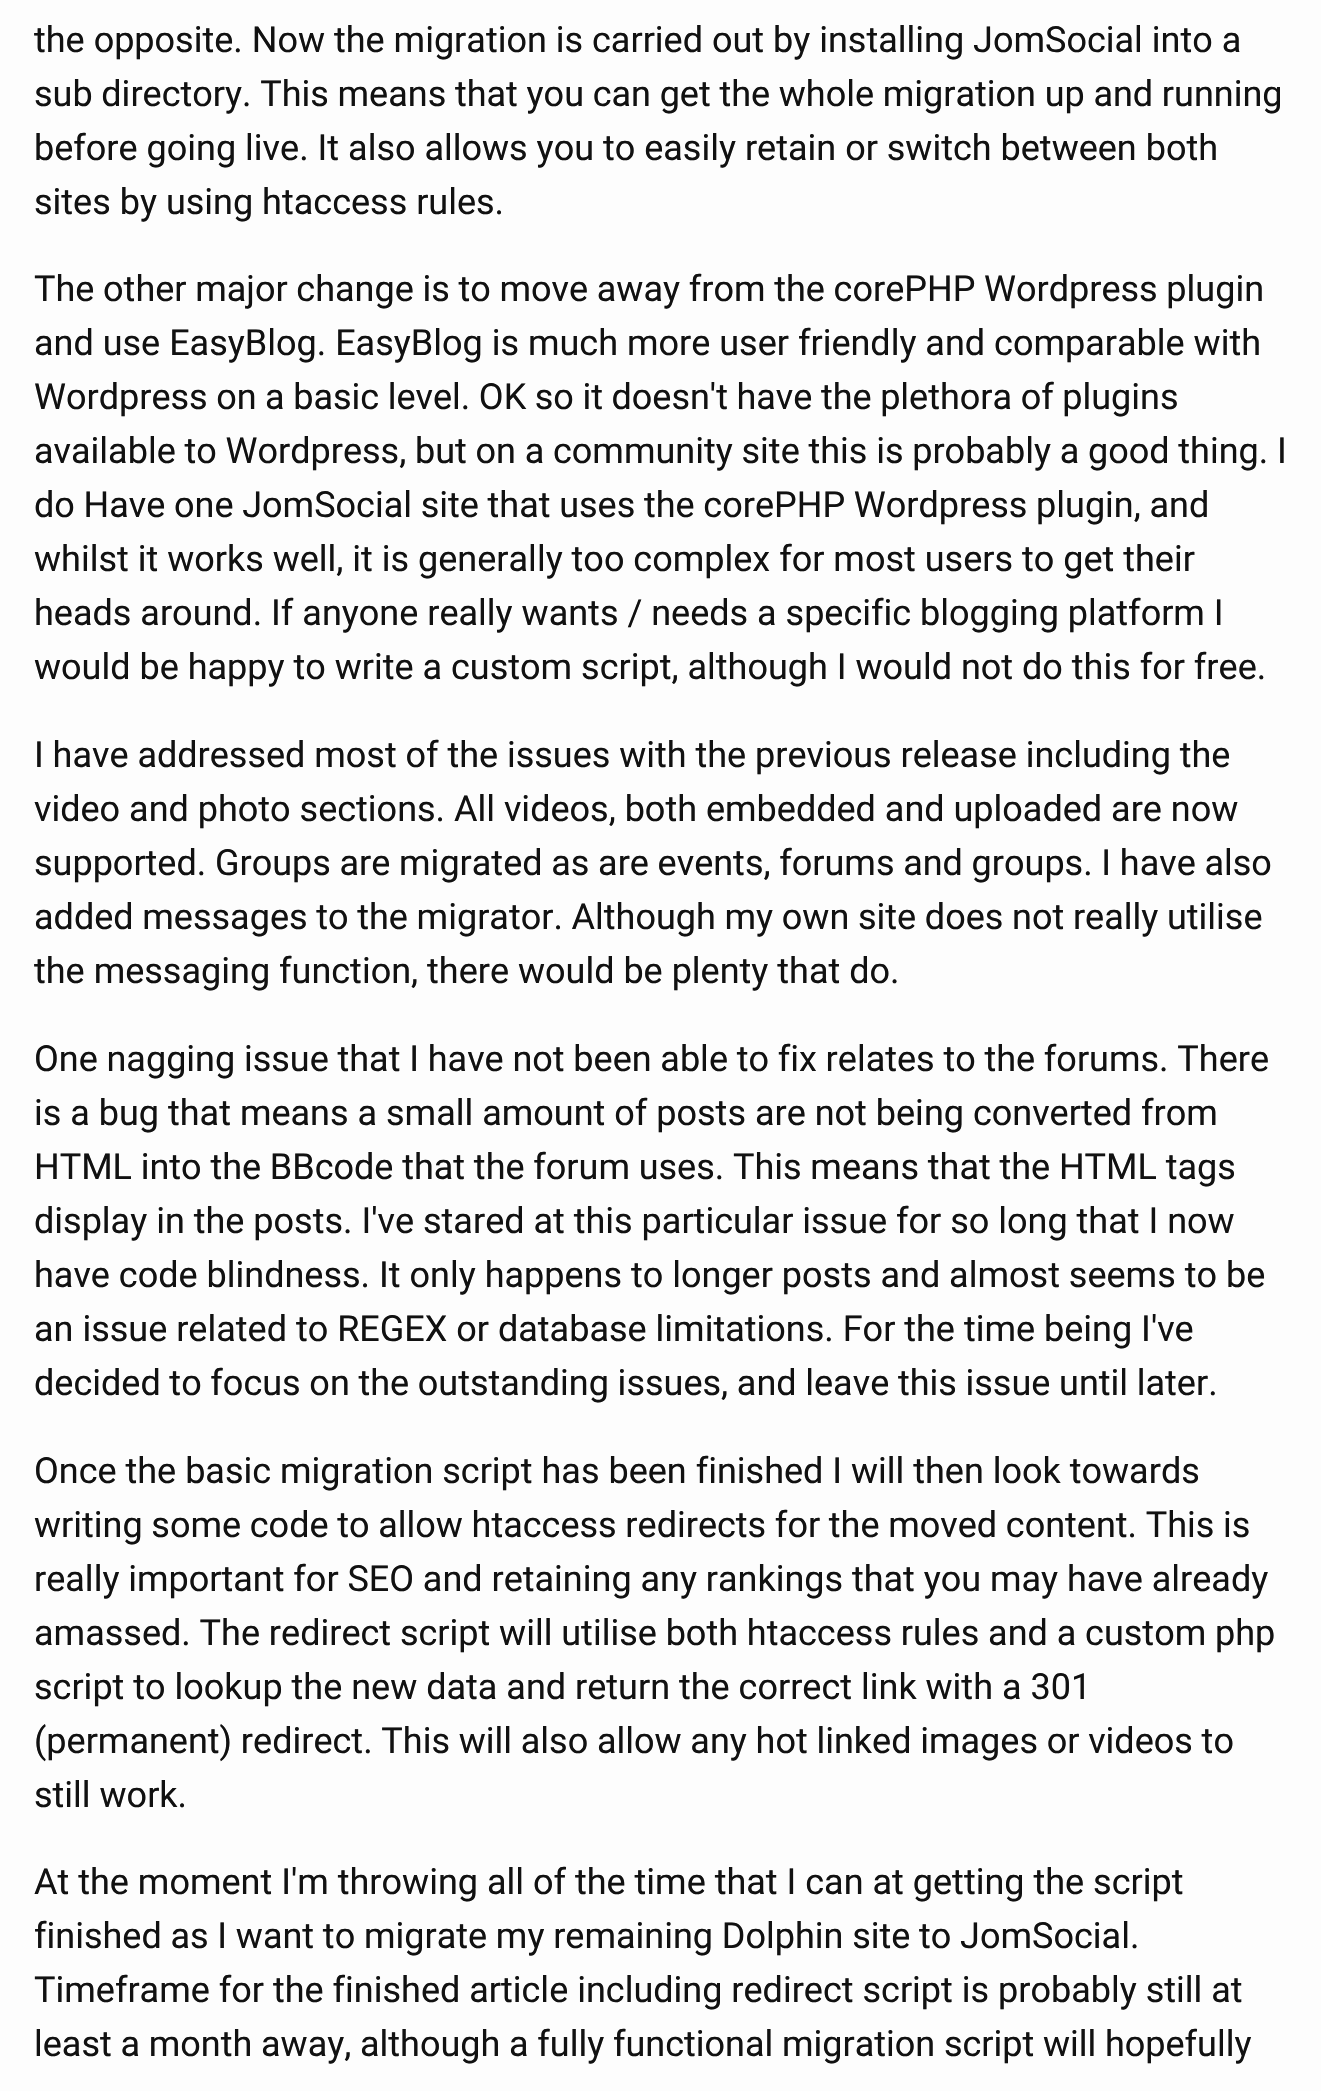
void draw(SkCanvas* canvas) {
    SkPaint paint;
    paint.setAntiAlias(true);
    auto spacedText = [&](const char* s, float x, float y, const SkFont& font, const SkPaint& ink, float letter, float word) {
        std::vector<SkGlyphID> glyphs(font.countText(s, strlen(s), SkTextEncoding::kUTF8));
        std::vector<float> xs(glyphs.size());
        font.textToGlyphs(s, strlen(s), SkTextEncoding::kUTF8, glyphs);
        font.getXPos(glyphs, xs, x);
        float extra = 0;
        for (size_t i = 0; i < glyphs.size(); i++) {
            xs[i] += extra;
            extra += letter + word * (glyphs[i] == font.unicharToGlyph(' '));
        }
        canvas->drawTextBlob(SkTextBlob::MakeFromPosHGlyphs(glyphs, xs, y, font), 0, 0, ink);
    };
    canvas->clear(0xFFFDFDFD);
    SkFont font1(fontMgr->matchFamilyStyle("Roboto", SkFontStyle::Normal()), 36);
    font1.setSubpixel(true);
    paint.setColor(0xFF111111);
    canvas->drawString("the opposite. Now the migration is carried out by installing JomSocial into a", 34, 52, font1, paint);
    spacedText("sub directory. This means that you can get the whole migration up and running", 34, 106, font1, paint, 0, -0.25f);
    canvas->drawString("before going live. It also allows you to easily retain or switch between both", 34, 160, font1, paint);
    canvas->drawString("sites by using htaccess rules.", 34, 214, font1, paint);
    spacedText("The other major change is to move away from the corePHP Wordpress plugin", 34, 301, font1, paint, 0, -0.25f);
    canvas->drawString("and use EasyBlog. EasyBlog is much more user friendly and comparable with", 34, 355, font1, paint);
    spacedText("Wordpress on a basic level. OK so it doesn't have the plethora of plugins", 34, 409, font1, paint, 0, -0.4f);
    spacedText("available to Wordpress, but on a community site this is probably a good thing. I", 34, 463, font1, paint, 0, -0.2f);
    spacedText("do Have one JomSocial site that uses the corePHP Wordpress plugin, and", 34, 517, font1, paint, 0, -0.25f);
    canvas->drawString("whilst it works well, it is generally too complex for most users to get their", 34, 571, font1, paint);
    canvas->drawString("heads around. If anyone really wants / needs a specific blogging platform I", 34, 625, font1, paint);
    canvas->drawString("would be happy to write a custom script, although I would not do this for free.", 34, 679, font1, paint);
    spacedText("I have addressed most of the issues with the previous release including the", 34, 767, font1, paint, 0, -0.1f);
    canvas->drawString("video and photo sections. All videos, both embedded and uploaded are now", 34, 821, font1, paint);
    spacedText("supported. Groups are migrated as are events, forums and groups. I have also", 34, 875, font1, paint, 0, -0.25f);
    spacedText("added messages to the migrator. Although my own site does not really utilise", 34, 929, font1, paint, 0, -0.25f);
    canvas->drawString("the messaging function, there would be plenty that do.", 34, 983, font1, paint);
    spacedText("One nagging issue that I have not been able to fix relates to the forums. There", 34, 1071, font1, paint, 0, -0.2f);
    canvas->drawString("is a bug that means a small amount of posts are not being converted from", 34, 1125, font1, paint);
    spacedText("HTML into the BBcode that the forum uses. This means that the HTML tags", 34, 1179, font1, paint, 0, -0.2f);
    canvas->drawString("display in the posts. I've stared at this particular issue for so long that I now", 34, 1233, font1, paint);
    canvas->drawString("have code blindness. It only happens to longer posts and almost seems to be", 34, 1287, font1, paint);
    canvas->drawString("an issue related to REGEX or database limitations. For the time being I've", 34, 1341, font1, paint);
    spacedText("decided to focus on the outstanding issues, and leave this issue until later.", 34, 1395, font1, paint, 0, -0.25f);
    canvas->drawString("Once the basic migration script has been finished I will then look towards", 34, 1483, font1, paint);
    spacedText("writing some code to allow htaccess redirects for the moved content. This is", 34, 1537, font1, paint, 0, -0.25f);
    spacedText("really important for SEO and retaining any rankings that you may have already", 34, 1591, font1, paint, 0, -0.1f);
    spacedText("amassed. The redirect script will utilise both htaccess rules and a custom php", 34, 1645, font1, paint, 0, -0.1f);
    canvas->drawString("script to lookup the new data and return the correct link with a 301", 34, 1699, font1, paint);
    spacedText("(permanent) redirect. This will also allow any hot linked images or videos to", 34, 1753, font1, paint, 0, -0.2f);
    canvas->drawString("still work.", 34, 1807, font1, paint);
    canvas->drawString("At the moment I'm throwing all of the time that I can at getting the script", 34, 1894, font1, paint);
    spacedText("finished as I want to migrate my remaining Dolphin site to JomSocial.", 34, 1948, font1, paint, 0, -0.2f);
    canvas->drawString("Timeframe for the finished article including redirect script is probably still at", 34, 2002, font1, paint);
    spacedText("least a month away, although a fully functional migration script will hopefully", 34, 2056, font1, paint, 0, -0.25f);
}
